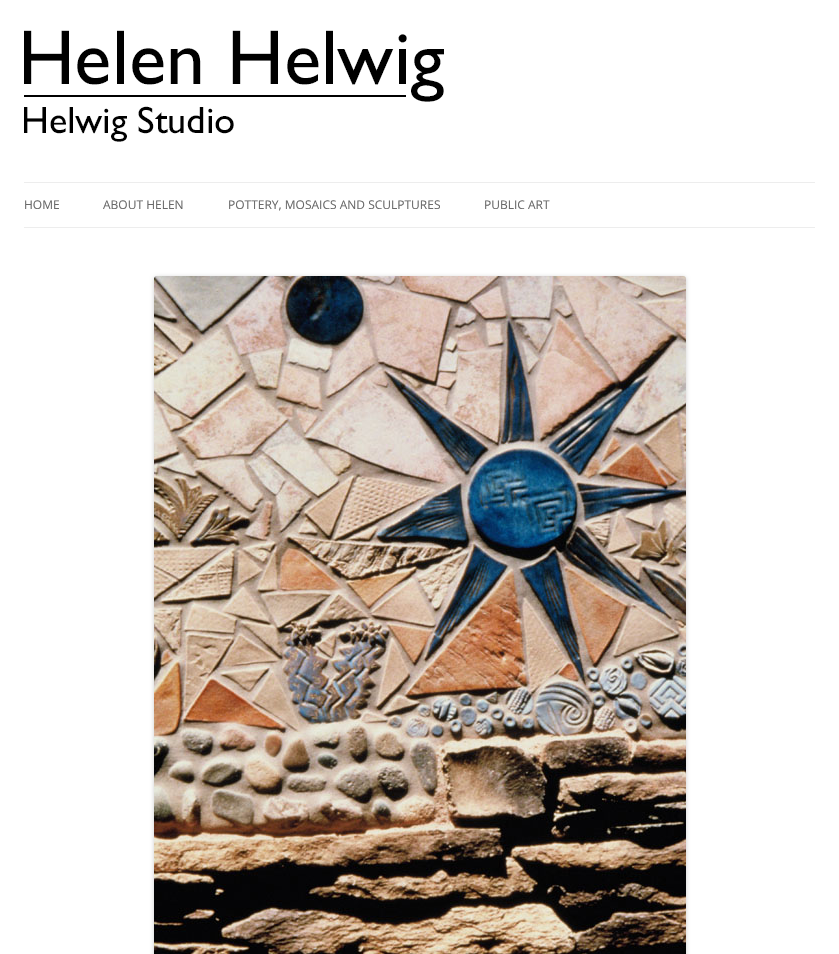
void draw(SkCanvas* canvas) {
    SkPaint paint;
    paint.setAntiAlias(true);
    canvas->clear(0xFFFFFFFF);
    canvas->drawImageRect(SkImages::DeferredFromEncodedData(SkData::MakeFromFileName("img1.png")), SkRect::MakeXYWH(24, 30, 420, 112), SkSamplingOptions());
    paint.setColor(0xFFEDEDED);
    canvas->drawRect(SkRect::MakeXYWH(24, 182, 791, 1), paint);
    canvas->drawRect(SkRect::MakeXYWH(24, 227, 791, 1), paint);
    SkFont font1(fontMgr->matchFamilyStyle("Open Sans", SkFontStyle::Normal()), 12);
    font1.setSubpixel(true);
    paint.setColor(0xFF6A6A6A);
    canvas->drawString("HOME", 24, 209, font1, paint);
    canvas->drawString("ABOUT HELEN", 103, 209, font1, paint);
    canvas->drawString("POTTERY, MOSAICS AND SCULPTURES", 228, 209, font1, paint);
    canvas->drawString("PUBLIC ART", 484, 209, font1, paint);
    paint.setColor(0x33000000);
    paint.setMaskFilter(SkMaskFilter::MakeBlur(kNormal_SkBlurStyle, 2));
    canvas->drawRoundRect(SkRect::MakeXYWH(154, 277, 532, 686), 3, 3, paint);
    paint.setMaskFilter(nullptr);
    canvas->drawImageRect(SkImages::DeferredFromEncodedData(SkData::MakeFromFileName("img2.png")), SkRect::MakeXYWH(154, 276, 532, 678), SkSamplingOptions());
}
